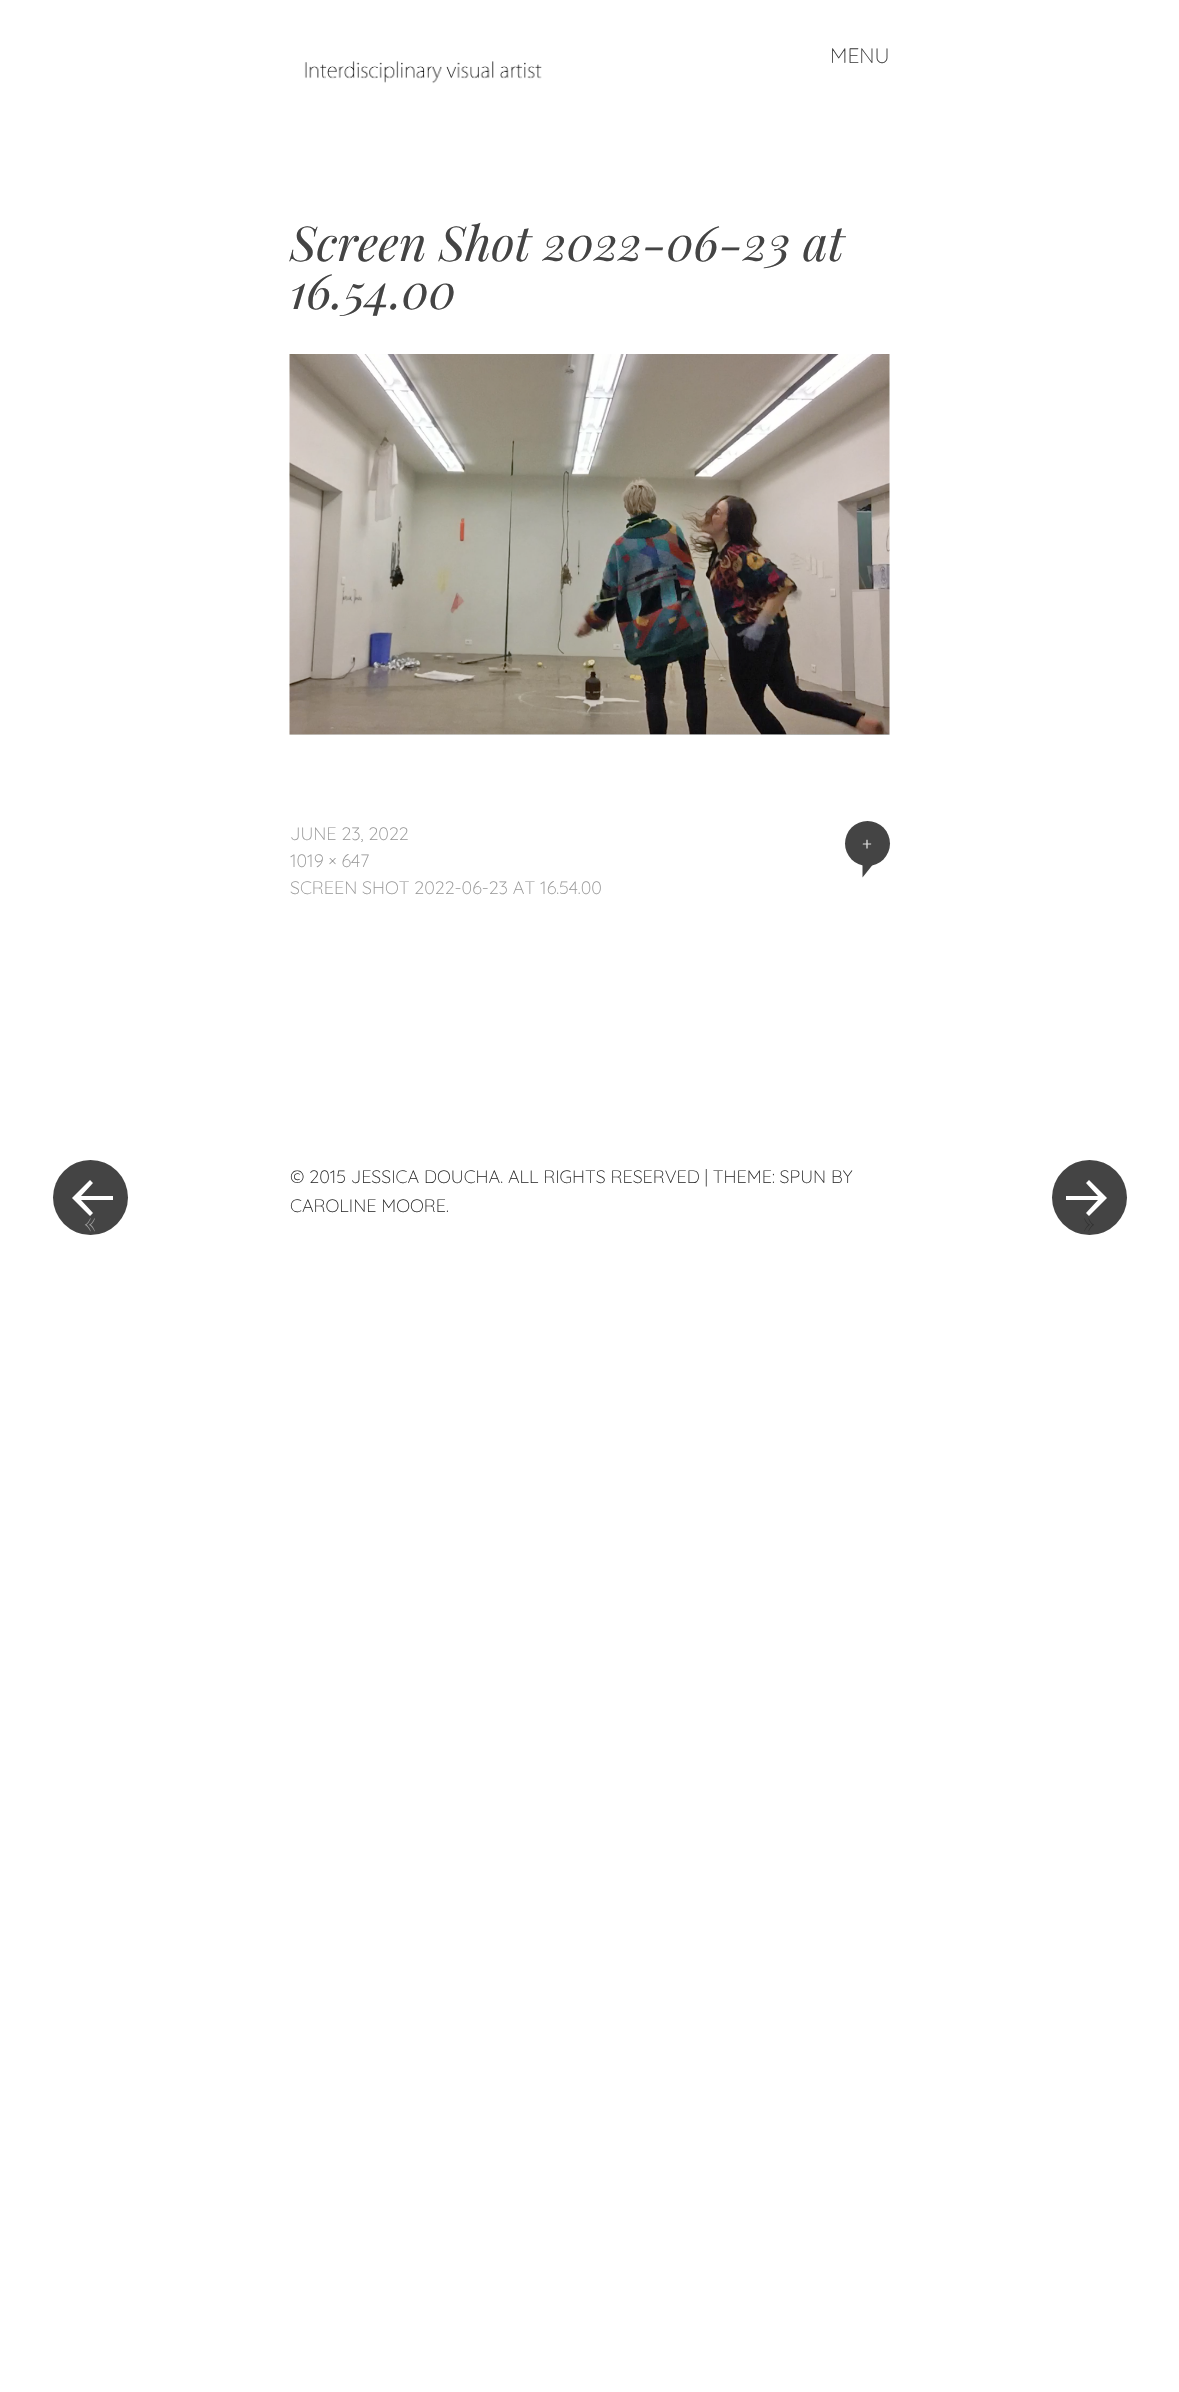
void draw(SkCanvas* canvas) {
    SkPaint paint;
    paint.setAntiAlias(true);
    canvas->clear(0xFFFFFFFF);
    SkFont font1(fontMgr->matchFamilyStyle("Quicksand", SkFontStyle(300, SkFontStyle::kNormal_Width, SkFontStyle::kUpright_Slant)), 21);
    font1.setSubpixel(true);
    paint.setColor(0xFF444444);
    canvas->drawString("MENU", 830, 63, font1, paint);
    canvas->drawImageRect(SkImages::DeferredFromEncodedData(SkData::MakeFromFileName("img1.png")), SkRect::MakeXYWH(304, 61, 238, 23), SkSamplingOptions());
    SkFont font2(fontMgr->matchFamilyStyle("Playfair Display", SkFontStyle::Italic()), 48);
    font2.setSubpixel(true);
    canvas->drawString("Screen Shot 2022-06-23 at", 290, 261, font2, paint);
    canvas->drawString("16.54.00", 290, 309, font2, paint);
    canvas->drawImageRect(SkImages::DeferredFromEncodedData(SkData::MakeFromFileName("img2.png")), SkRect::MakeXYWH(289, 354, 601, 381), SkSamplingOptions());
    SkFont font3(fontMgr->matchFamilyStyle("Quicksand", SkFontStyle(300, SkFontStyle::kNormal_Width, SkFontStyle::kUpright_Slant)), 18);
    font3.setSubpixel(true);
    paint.setColor(0xFF999999);
    canvas->drawString("JUNE 23, 2022", 290, 840, font3, paint);
    paint.setColor(0xFF444444);
    canvas->drawPath(SkPathBuilder().moveTo(862.5f, 862.5f).lineTo(874.5f, 862.5f).lineTo(862.5f, 877.5f).close().detach(), paint);
    canvas->drawCircle(867.5f, 843.5f, 22.5f, paint);
    paint.setColor(0xFFFFFFFF);
    canvas->drawString("+", 862, 850, font3, paint);
    paint.setColor(0xFF999999);
    canvas->drawString("1019 × 647", 290, 867, font3, paint);
    canvas->drawString("SCREEN SHOT 2022-06-23 AT 16.54.00", 290, 894, font3, paint);
    paint.setColor(0xFF444444);
    canvas->drawCircle(90.5f, 1197.5f, 37.5f, paint);
    paint.setColor(0xFFFFFFFF);
    canvas->drawPath(SkPathBuilder().moveTo(72, 1198).lineTo(90, 1216).lineTo(93, 1213).lineTo(81, 1200).lineTo(113, 1200).lineTo(113, 1196).lineTo(81, 1196).lineTo(93, 1183).lineTo(90, 1180).close().detach(), paint);
    SkFont font4(fontMgr->matchFamilyStyle("Playfair Display", SkFontStyle::Normal()), 24);
    font4.setSubpixel(true);
    paint.setColor(0xFF999999);
    canvas->drawString("«", 84, 1231, font4, paint);
    paint.setColor(0xFF444444);
    canvas->drawCircle(1089.5f, 1197.5f, 37.5f, paint);
    paint.setColor(0xFFFFFFFF);
    canvas->drawPath(SkPathBuilder().moveTo(1107, 1198).lineTo(1089, 1216).lineTo(1086, 1213).lineTo(1098, 1200).lineTo(1066, 1200).lineTo(1066, 1196).lineTo(1098, 1196).lineTo(1086, 1183).lineTo(1089, 1180).close().detach(), paint);
    paint.setColor(0xFF333333);
    canvas->drawString("»", 1083, 1231, font4, paint);
    canvas->drawString("© 2015 JESSICA DOUCHA. ALL RIGHTS RESERVED | THEME: SPUN BY", 290, 1183, font3, paint);
    canvas->drawString("CAROLINE MOORE.", 290, 1212, font3, paint);
}
